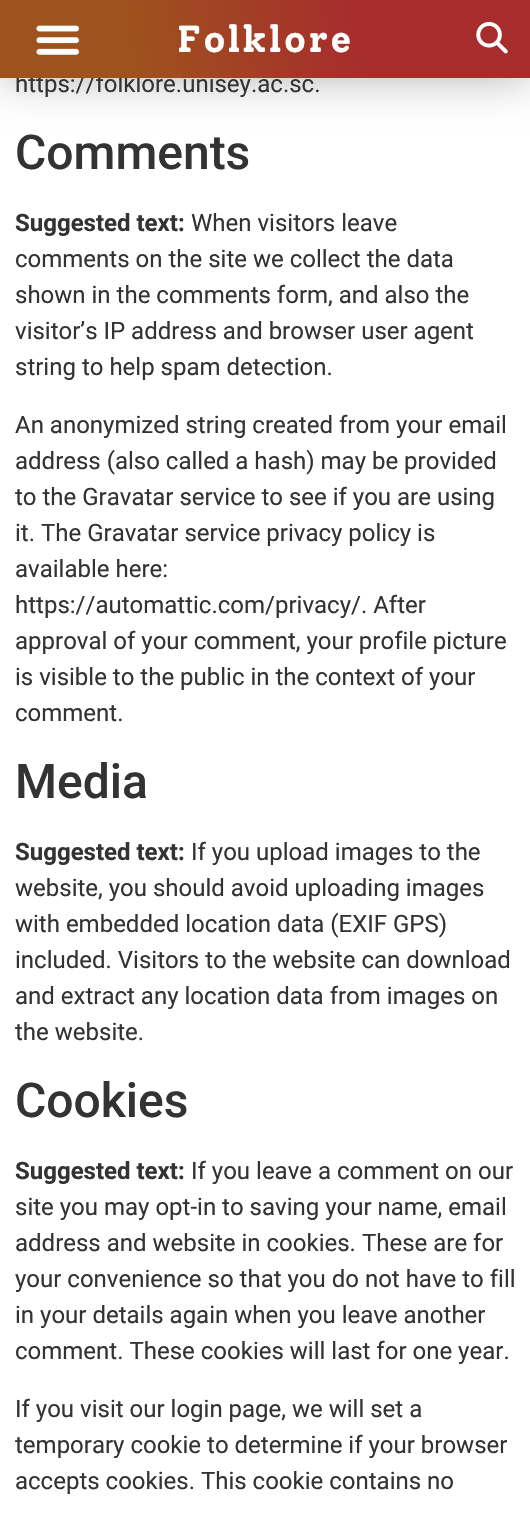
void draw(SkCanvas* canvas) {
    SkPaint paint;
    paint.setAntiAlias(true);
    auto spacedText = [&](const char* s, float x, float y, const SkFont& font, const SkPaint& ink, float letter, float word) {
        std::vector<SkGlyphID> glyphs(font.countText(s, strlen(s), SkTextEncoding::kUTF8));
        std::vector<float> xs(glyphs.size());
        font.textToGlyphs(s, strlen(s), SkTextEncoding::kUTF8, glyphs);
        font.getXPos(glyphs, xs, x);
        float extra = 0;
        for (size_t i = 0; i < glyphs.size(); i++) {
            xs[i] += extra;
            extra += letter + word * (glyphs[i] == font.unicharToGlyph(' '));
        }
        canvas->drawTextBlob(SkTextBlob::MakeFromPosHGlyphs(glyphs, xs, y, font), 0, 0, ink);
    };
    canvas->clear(0xFFFFFFFF);
    paint.setColor(0x4D000000);
    paint.setMaskFilter(SkMaskFilter::MakeBlur(kNormal_SkBlurStyle, 22.5f));
    canvas->drawRect(SkRect::MakeXYWH(0, 0, 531, 78), paint);
    paint.setMaskFilter(nullptr);
    SkFont font1(fontMgr->matchFamilyStyle("Roboto", SkFontStyle::Normal()), 24);
    font1.setSubpixel(true);
    paint.setColor(0xFF333333);
    canvas->drawString("https://folklore.unisey.ac.sc.", 15, 92, font1, paint);
    {
        const SkColor colors[] = {0xFF9E521D, 0xFFA72D2D};
        const float stops[] = {0.25f, 0.67f};
        const SkPoint ends[] = {{1.3f, 86}, {530, -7.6f}};
        paint.setShader(SkGradientShader::MakeLinear(ends, colors, stops, 2, SkTileMode::kClamp));
        paint.setAlpha(255);
    }
    canvas->drawRect(SkRect::MakeXYWH(0, 0, 530, 78), paint);
    canvas->drawImageRect(SkImages::DeferredFromEncodedData(SkData::MakeFromFileName("img1.png")), SkRect::MakeXYWH(36, 25, 43, 30), SkSamplingOptions());
    SkFont font2(fontMgr->matchFamilyStyle("Solway", SkFontStyle::Bold()), 37.5f);
    font2.setSubpixel(true);
    paint.setShader(nullptr);
    paint.setColor(0xFFFFFFFF);
    spacedText("Folklore", 177, 52, font2, paint, 2.75f, 0);
    canvas->drawImageRect(SkImages::DeferredFromEncodedData(SkData::MakeFromFileName("img2.png")), SkRect::MakeXYWH(476, 21, 32, 33), SkSamplingOptions());
    SkFont font3(fontMgr->matchFamilyStyle("Roboto", SkFontStyle(500, SkFontStyle::kNormal_Width, SkFontStyle::kUpright_Slant)), 48);
    font3.setSubpixel(true);
    paint.setColor(0xFF333333);
    canvas->drawString("Comments", 15, 169, font3, paint);
    SkFont font4(fontMgr->matchFamilyStyle("Roboto", SkFontStyle::Bold()), 24);
    font4.setSubpixel(true);
    canvas->drawString("Suggested text:", 15, 231, font4, paint);
    canvas->drawString("When visitors leave", 191, 231, font1, paint);
    canvas->drawString("comments on the site we collect the data", 15, 267, font1, paint);
    canvas->drawString("shown in the comments form, and also the", 15, 303, font1, paint);
    canvas->drawString("visitor’s IP address and browser user agent", 15, 339, font1, paint);
    canvas->drawString("string to help spam detection.", 15, 375, font1, paint);
    canvas->drawString("An anonymized string created from your email", 15, 433, font1, paint);
    canvas->drawString("address (also called a hash) may be provided", 15, 469, font1, paint);
    canvas->drawString("to the Gravatar service to see if you are using", 15, 505, font1, paint);
    canvas->drawString("it. The Gravatar service privacy policy is", 15, 541, font1, paint);
    canvas->drawString("available here:", 15, 577, font1, paint);
    canvas->drawString("https://automattic.com/privacy/. After", 15, 613, font1, paint);
    canvas->drawString("approval of your comment, your profile picture", 15, 649, font1, paint);
    canvas->drawString("is visible to the public in the context of your", 15, 685, font1, paint);
    canvas->drawString("comment.", 15, 721, font1, paint);
    canvas->drawString("Media", 15, 798, font3, paint);
    canvas->drawString("Suggested text:", 15, 860, font4, paint);
    canvas->drawString("If you upload images to the", 191, 860, font1, paint);
    canvas->drawString("website, you should avoid uploading images", 15, 896, font1, paint);
    canvas->drawString("with embedded location data (EXIF GPS)", 15, 932, font1, paint);
    canvas->drawString("included. Visitors to the website can download", 15, 968, font1, paint);
    canvas->drawString("and extract any location data from images on", 15, 1004, font1, paint);
    canvas->drawString("the website.", 15, 1040, font1, paint);
    canvas->drawString("Cookies", 15, 1117, font3, paint);
    canvas->drawString("Suggested text:", 15, 1179, font4, paint);
    canvas->drawString("If you leave a comment on our", 191, 1179, font1, paint);
    canvas->drawString("site you may opt-in to saving your name, email", 15, 1215, font1, paint);
    canvas->drawString("address and website in cookies. These are for", 15, 1251, font1, paint);
    canvas->drawString("your convenience so that you do not have to fill", 15, 1287, font1, paint);
    canvas->drawString("in your details again when you leave another", 15, 1323, font1, paint);
    canvas->drawString("comment. These cookies will last for one year.", 15, 1359, font1, paint);
    canvas->drawString("If you visit our login page, we will set a", 15, 1417, font1, paint);
    canvas->drawString("temporary cookie to determine if your browser", 15, 1453, font1, paint);
    canvas->drawString("accepts cookies. This cookie contains no", 15, 1489, font1, paint);
}
